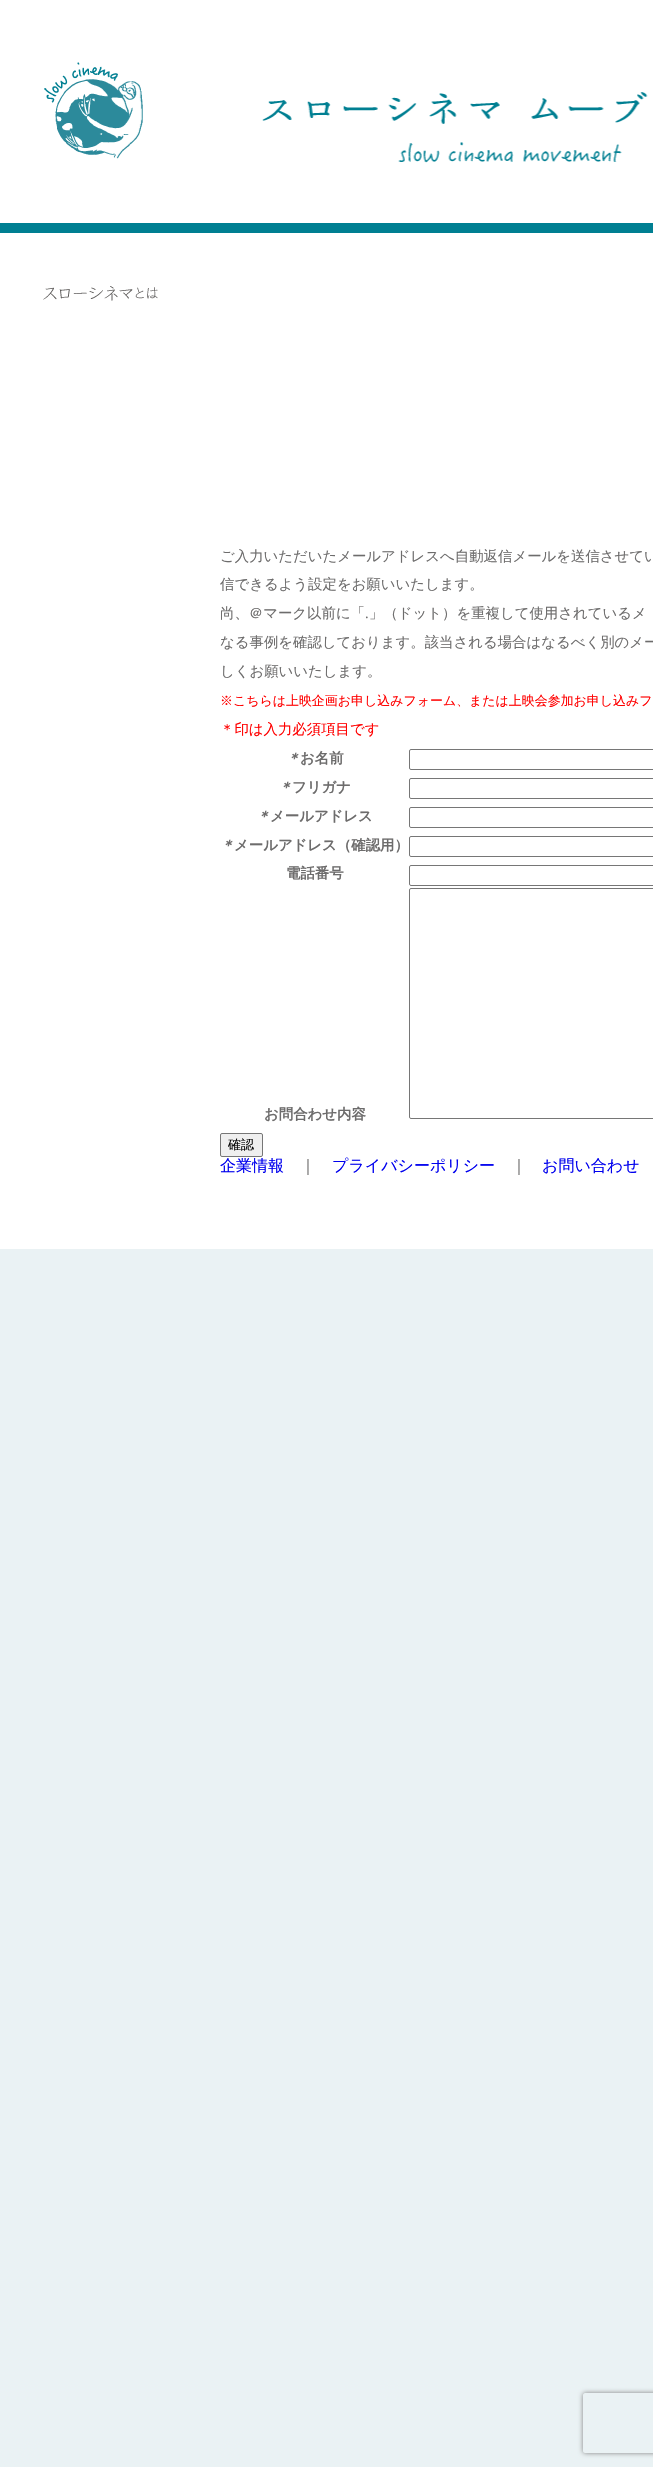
void draw(SkCanvas* canvas) {
    SkPaint paint;
    paint.setAntiAlias(true);
    canvas->clear(0xFFEAF2F4);
    paint.setColor(0xFFFFFFFF);
    canvas->drawRect(SkRect::MakeXYWH(0, 0, 653, 1249), paint);
    paint.setColor(0xFF007F92);
    canvas->drawRect(SkRect::MakeXYWH(0, 223, 653, 10), paint);
    canvas->drawImageRect(SkImages::DeferredFromEncodedData(SkData::MakeFromFileName("img1.png")), SkRect::MakeXYWH(44, 62, 604, 101), SkSamplingOptions());
    canvas->drawImageRect(SkImages::DeferredFromEncodedData(SkData::MakeFromFileName("img2.png")), SkRect::MakeXYWH(43, 286, 115, 15), SkSamplingOptions());
    SkFont font1(fontMgr->matchFamilyStyle("WenQuanYi Zen Hei", SkFontStyle(500, SkFontStyle::kNormal_Width, SkFontStyle::kUpright_Slant)), 14.4f);
    font1.setSubpixel(true);
    paint.setColor(0xFF6D6C6C);
    canvas->drawString("ご入力いただいたメールアドレスへ自動返信メールを送信させてい", 220, 561, font1, paint);
    canvas->drawString("信できるよう設定をお願いいたします。", 220, 589, font1, paint);
    canvas->drawString("尚、＠マーク以前に「", 220, 618, font1, paint);
    SkFont font2(fontMgr->matchFamilyStyle("Liberation Serif", SkFontStyle::Normal()), 14.4f);
    font2.setSubpixel(true);
    canvas->drawString(".", 365, 618, font2, paint);
    canvas->drawString("」（ドット）を重複して使用されているメ", 369, 618, font1, paint);
    canvas->drawString("なる事例を確認しております。該当される場合はなるべく別のメー", 220, 647, font1, paint);
    canvas->drawString("しくお願いいたします。", 220, 676, font1, paint);
    SkFont font3(fontMgr->matchFamilyStyle("WenQuanYi Zen Hei", SkFontStyle(500, SkFontStyle::kNormal_Width, SkFontStyle::kUpright_Slant)), 12.95f);
    font3.setSubpixel(true);
    paint.setColor(0xFFFF0000);
    canvas->drawString("※こちらは上映企画お申し込みフォーム、または上映会参加お申し込みフ", 220, 705, font3, paint);
    canvas->drawString("＊印は入力必須項目です", 220, 734, font1, paint);
    SkFont font4(fontMgr->matchFamilyStyle("WenQuanYi Zen Hei", SkFontStyle::BoldItalic()), 14.4f);
    font4.setSubpixel(true);
    paint.setColor(0xFF6D6C6C);
    canvas->drawString("＊", 286, 763, font4, paint);
    SkFont font5(fontMgr->matchFamilyStyle("WenQuanYi Zen Hei", SkFontStyle::Bold()), 14.4f);
    font5.setSubpixel(true);
    canvas->drawString("お名前", 300, 763, font5, paint);
    paint.setStyle(SkPaint::kStroke_Style);
    paint.setStrokeWidth(1);
    paint.setColor(0xFF767676);
    canvas->drawRoundRect(SkRect::MakeXYWH(409.5f, 749.5f, 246, 20), 1.5f, 1.5f, paint);
    paint.setStyle(SkPaint::kFill_Style);
    paint.setColor(0xFF6D6C6C);
    canvas->drawString("＊", 278, 792, font4, paint);
    canvas->drawString("フリガナ", 292, 792, font5, paint);
    paint.setStyle(SkPaint::kStroke_Style);
    paint.setColor(0xFF767676);
    canvas->drawRoundRect(SkRect::MakeXYWH(409.5f, 778.5f, 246, 20), 1.5f, 1.5f, paint);
    paint.setStyle(SkPaint::kFill_Style);
    paint.setColor(0xFF6D6C6C);
    canvas->drawString("＊", 256, 821, font4, paint);
    canvas->drawString("メールアドレス", 270, 821, font5, paint);
    paint.setStyle(SkPaint::kStroke_Style);
    paint.setColor(0xFF767676);
    canvas->drawRoundRect(SkRect::MakeXYWH(409.5f, 807.5f, 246, 20), 1.5f, 1.5f, paint);
    paint.setStyle(SkPaint::kFill_Style);
    paint.setColor(0xFF6D6C6C);
    canvas->drawString("＊", 220, 850, font4, paint);
    canvas->drawString("メールアドレス（確認用）", 234, 850, font5, paint);
    paint.setStyle(SkPaint::kStroke_Style);
    paint.setColor(0xFF767676);
    canvas->drawRoundRect(SkRect::MakeXYWH(409.5f, 836.5f, 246, 20), 1.5f, 1.5f, paint);
    paint.setStyle(SkPaint::kFill_Style);
    paint.setColor(0xFF6D6C6C);
    canvas->drawString("電話番号", 286, 878, font5, paint);
    paint.setStyle(SkPaint::kStroke_Style);
    paint.setColor(0xFF767676);
    canvas->drawRoundRect(SkRect::MakeXYWH(409.5f, 865.5f, 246, 20), 1.5f, 1.5f, paint);
    paint.setStyle(SkPaint::kFill_Style);
    paint.setColor(0xFF6D6C6C);
    canvas->drawString("お問合わせ内容", 264, 1119, font5, paint);
    paint.setStyle(SkPaint::kStroke_Style);
    paint.setColor(0xFF767676);
    canvas->drawRoundRect(SkRect::MakeXYWH(409.5f, 888.5f, 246, 230), 1.5f, 1.5f, paint);
    paint.setStyle(SkPaint::kFill_Style);
    paint.setColor(0xFFEFEFEF);
    canvas->drawRoundRect(SkRect::MakeXYWH(220.5f, 1133.5f, 42, 23), 1.5f, 1.5f, paint);
    paint.setStyle(SkPaint::kStroke_Style);
    paint.setColor(0xFF767676);
    canvas->drawRoundRect(SkRect::MakeXYWH(220.5f, 1133.5f, 42, 23), 1.5f, 1.5f, paint);
    SkFont font6(fontMgr->matchFamilyStyle("WenQuanYi Zen Hei", SkFontStyle(500, SkFontStyle::kNormal_Width, SkFontStyle::kUpright_Slant)), 13);
    font6.setSubpixel(true);
    paint.setStyle(SkPaint::kFill_Style);
    paint.setColor(0xFF000000);
    canvas->drawString("確認", 228, 1149, font6, paint);
    SkFont font7(fontMgr->matchFamilyStyle("WenQuanYi Zen Hei", SkFontStyle(500, SkFontStyle::kNormal_Width, SkFontStyle::kUpright_Slant)), 16);
    font7.setSubpixel(true);
    paint.setColor(0xFF0000EE);
    canvas->drawString("企業情報", 220, 1171, font7, paint);
    paint.setColor(0xFF6D6C6C);
    canvas->drawString("｜", 300, 1171, font7, paint);
    paint.setColor(0xFF0000EE);
    canvas->drawString("プライバシーポリシー", 332, 1171, font7, paint);
    paint.setColor(0xFF6D6C6C);
    canvas->drawString("｜", 511, 1171, font7, paint);
    paint.setColor(0xFF0000EE);
    canvas->drawString("お問い合わせ", 542, 1171, font7, paint);
    canvas->save();
    canvas->clipPath(SkPathBuilder(SkPathFillType::kEvenOdd).moveTo(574, 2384).lineTo(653, 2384).lineTo(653, 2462).lineTo(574, 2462).close().moveTo(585, 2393).lineTo(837, 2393).cubicTo(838, 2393, 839, 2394, 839, 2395).lineTo(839, 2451).cubicTo(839, 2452, 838, 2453, 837, 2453).lineTo(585, 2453).cubicTo(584, 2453, 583, 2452, 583, 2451).lineTo(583, 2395).cubicTo(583, 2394, 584, 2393, 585, 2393).close().detach(), true);
    paint.setColor(0xFF808080);
    paint.setMaskFilter(SkMaskFilter::MakeBlur(kNormal_SkBlurStyle, 2.5f));
    canvas->drawRoundRect(SkRect::MakeXYWH(583, 2393, 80, 60), 2, 2, paint);
    paint.setMaskFilter(nullptr);
    canvas->restore();
}
